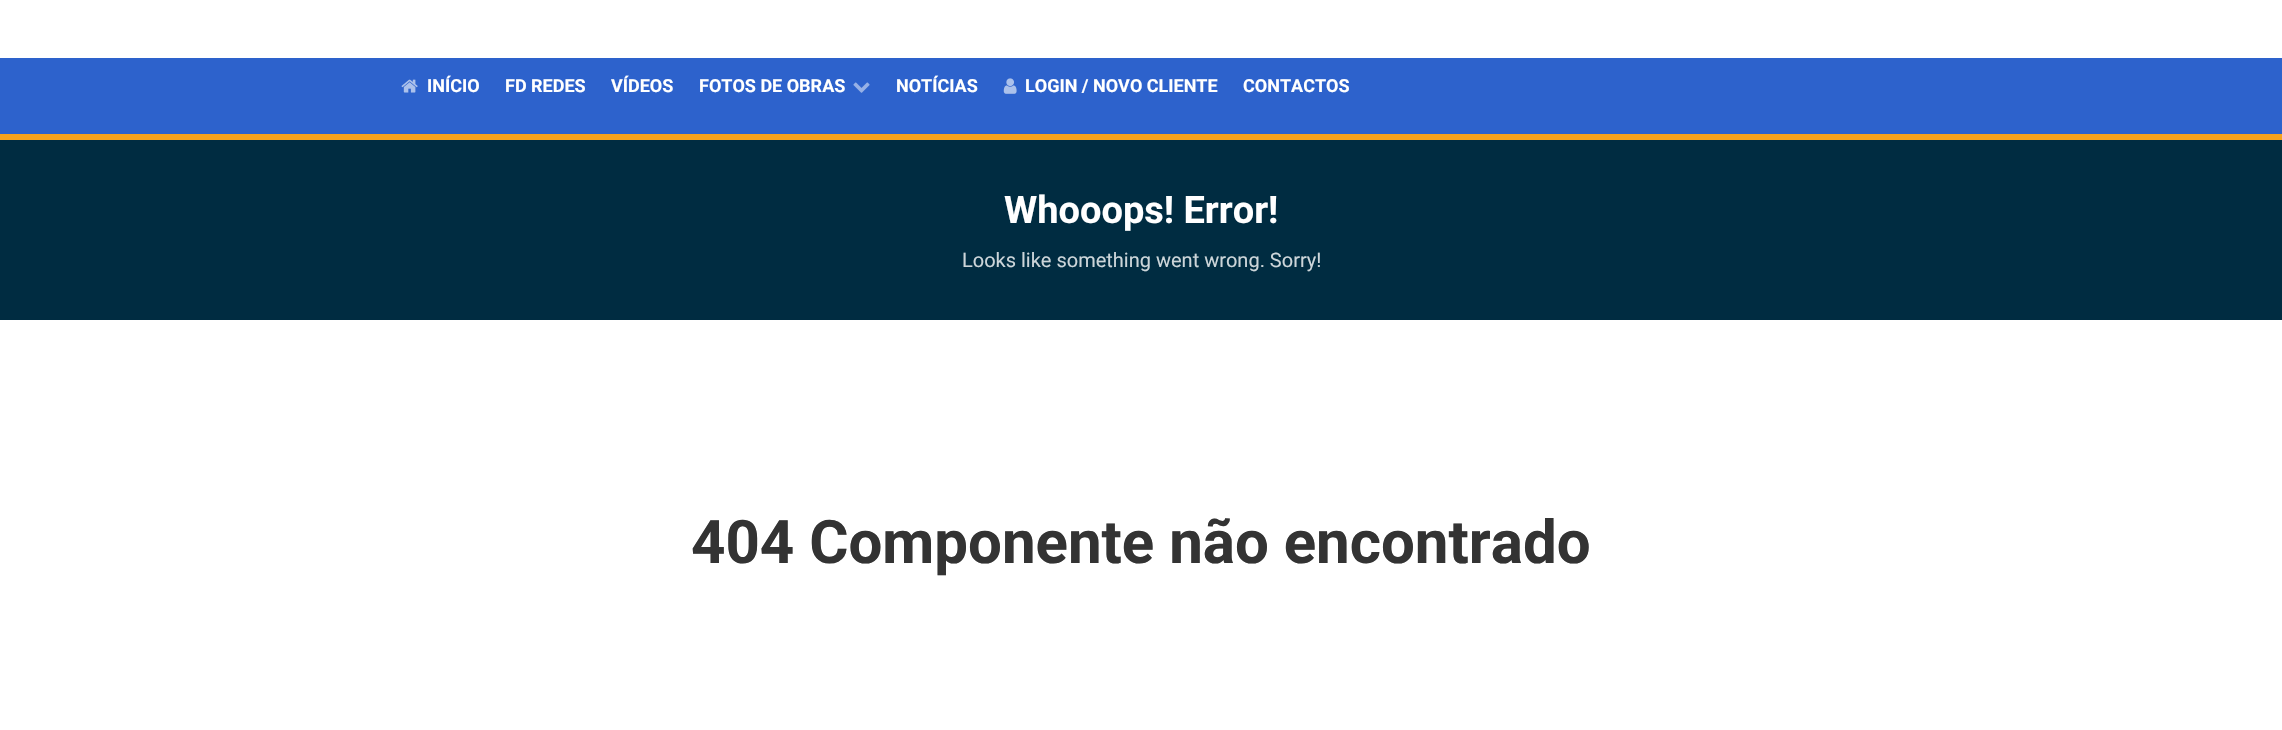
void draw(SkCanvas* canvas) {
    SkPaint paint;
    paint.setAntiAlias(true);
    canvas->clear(0xFFFFFFFF);
    paint.setColor(0xFF2D62CC);
    canvas->drawRect(SkRect::MakeXYWH(0, 58, 2282, 76), paint);
    canvas->drawImageRect(SkImages::DeferredFromEncodedData(SkData::MakeFromFileName("img1.png")), SkRect::MakeXYWH(401, 79, 17, 14), SkSamplingOptions());
    SkFont font1(fontMgr->matchFamilyStyle("Roboto", SkFontStyle::Bold()), 18);
    font1.setSubpixel(true);
    paint.setColor(0xFFFFFFFF);
    canvas->drawString("INÍCIO", 427, 92, font1, paint);
    canvas->drawString("FD REDES", 505, 92, font1, paint);
    canvas->drawString("VÍDEOS", 611, 92, font1, paint);
    canvas->drawString("FOTOS DE OBRAS", 699, 92, font1, paint);
    canvas->drawImageRect(SkImages::DeferredFromEncodedData(SkData::MakeFromFileName("img2.png")), SkRect::MakeXYWH(853, 82, 17, 11), SkSamplingOptions());
    canvas->drawString("NOTÍCIAS", 896, 92, font1, paint);
    canvas->drawImageRect(SkImages::DeferredFromEncodedData(SkData::MakeFromFileName("img3.png")), SkRect::MakeXYWH(1003, 78, 14, 16), SkSamplingOptions());
    canvas->drawString("LOGIN / NOVO CLIENTE", 1025, 92, font1, paint);
    canvas->drawString("CONTACTOS", 1243, 92, font1, paint);
    paint.setColor(0xFF002C41);
    canvas->drawRect(SkRect::MakeXYWH(0, 140, 2282, 180), paint);
    paint.setColor(0xFFF6A21D);
    canvas->drawRect(SkRect::MakeXYWH(0, 134, 2282, 6), paint);
    SkFont font2(fontMgr->matchFamilyStyle("Roboto", SkFontStyle::Bold()), 38);
    font2.setSubpixel(true);
    paint.setColor(0xFFFFFFFF);
    canvas->drawString("Whooops! Error!", 1004, 223, font2, paint);
    SkFont font3(fontMgr->matchFamilyStyle("Roboto", SkFontStyle::Normal()), 20);
    font3.setSubpixel(true);
    paint.setColor(0xFFCCD5D9);
    canvas->drawString("Looks like something went wrong. Sorry!", 962, 267, font3, paint);
    SkFont font4(fontMgr->matchFamilyStyle("Roboto", SkFontStyle::Bold()), 60);
    font4.setSubpixel(true);
    paint.setColor(0xFF333333);
    canvas->drawString("404 Componente não encontrado", 691, 563, font4, paint);
}
